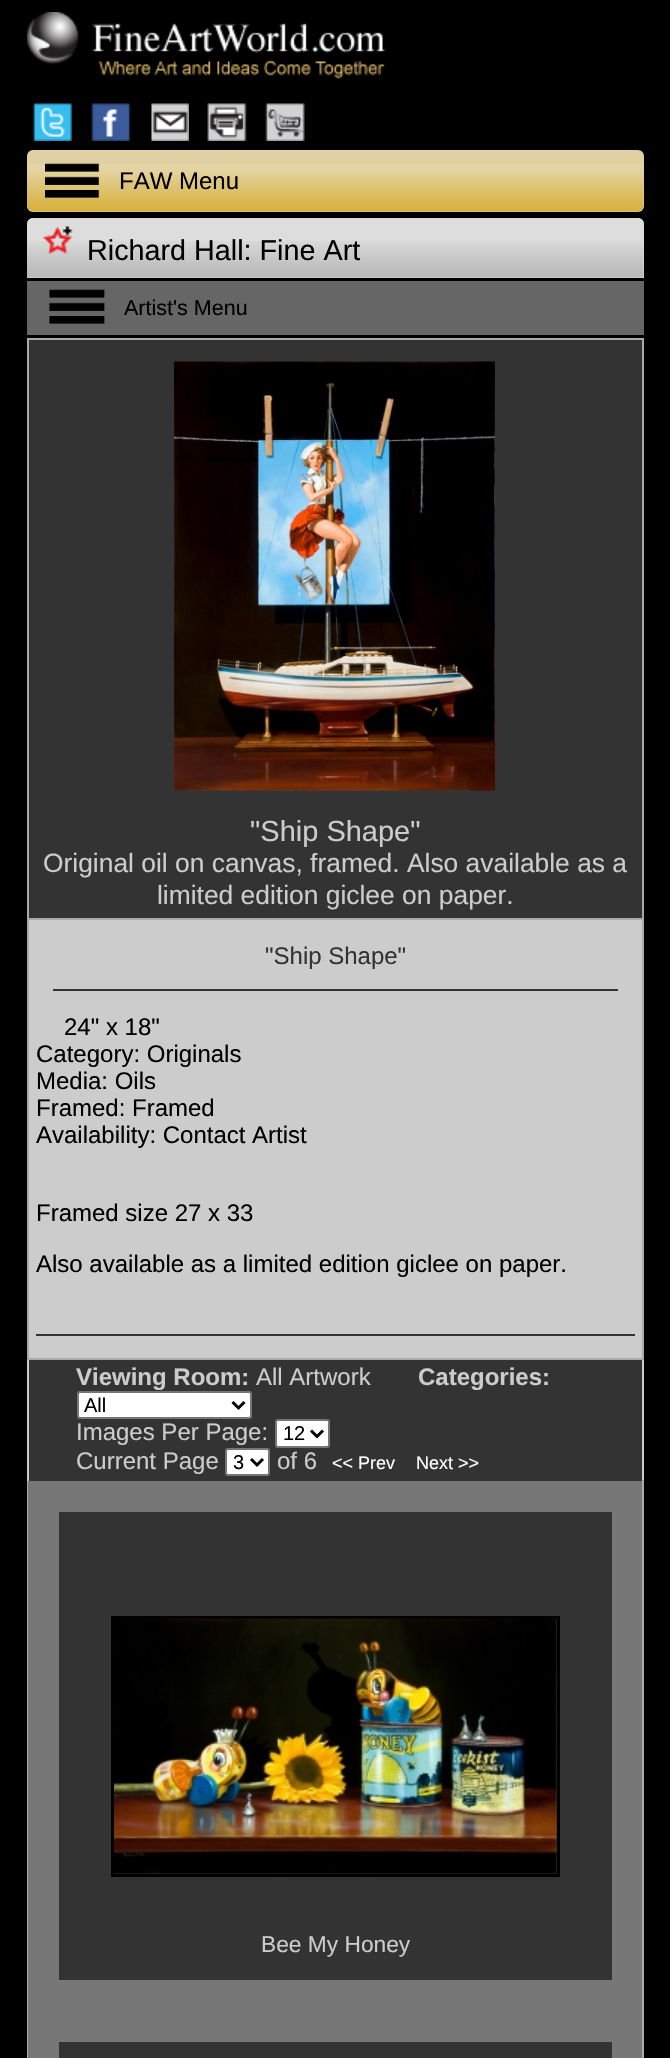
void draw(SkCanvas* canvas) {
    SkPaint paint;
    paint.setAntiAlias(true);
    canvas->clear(0xFF000000);
    canvas->drawImageRect(SkImages::DeferredFromEncodedData(SkData::MakeFromFileName("img1.png")), SkRect::MakeXYWH(27, 12, 359, 67), SkSamplingOptions());
    canvas->drawImageRect(SkImages::DeferredFromEncodedData(SkData::MakeFromFileName("img2.png")), SkRect::MakeXYWH(32, 103, 40, 38), SkSamplingOptions());
    canvas->drawImageRect(SkImages::DeferredFromEncodedData(SkData::MakeFromFileName("img3.png")), SkRect::MakeXYWH(91, 103, 40, 38), SkSamplingOptions());
    canvas->drawImageRect(SkImages::DeferredFromEncodedData(SkData::MakeFromFileName("img4.png")), SkRect::MakeXYWH(151, 103, 38, 38), SkSamplingOptions());
    canvas->drawImageRect(SkImages::DeferredFromEncodedData(SkData::MakeFromFileName("img5.png")), SkRect::MakeXYWH(207, 103, 40, 38), SkSamplingOptions());
    canvas->drawImageRect(SkImages::DeferredFromEncodedData(SkData::MakeFromFileName("img6.png")), SkRect::MakeXYWH(265, 103, 40, 38), SkSamplingOptions());
    paint.setColor(0xFFE0D0A2);
    canvas->drawRoundRect(SkRect::MakeXYWH(27, 150, 617, 62), 6, 6, paint);
    canvas->drawImageRect(SkImages::DeferredFromEncodedData(SkData::MakeFromFileName("img7.png")), SkRect::MakeXYWH(27, 164, 617, 48), SkSamplingOptions());
    canvas->drawImageRect(SkImages::DeferredFromEncodedData(SkData::MakeFromFileName("img8.png")), SkRect::MakeXYWH(45, 163, 54, 35), SkSamplingOptions());
    SkFont font1(fontMgr->matchFamilyStyle("Liberation Sans", SkFontStyle::Normal()), 24);
    font1.setSubpixel(true);
    paint.setColor(0xFF000000);
    canvas->drawString("FAW Menu", 119, 189, font1, paint);
    paint.setColor(0xFFDDDDDD);
    canvas->drawPath(SkPathBuilder().moveTo(33, 218).lineTo(638, 218).cubicTo(641.5f, 218, 644, 220.5f, 644, 224).lineTo(644, 278).lineTo(27, 278).lineTo(27, 224).cubicTo(27, 220.5f, 29.5f, 218, 33, 218).close().detach(), paint);
    canvas->drawImageRect(SkImages::DeferredFromEncodedData(SkData::MakeFromFileName("img9.png")), SkRect::MakeXYWH(27, 241, 617, 37), SkSamplingOptions());
    canvas->drawImageRect(SkImages::DeferredFromEncodedData(SkData::MakeFromFileName("img10.png")), SkRect::MakeXYWH(43, 226, 30, 28), SkSamplingOptions());
    SkFont font2(fontMgr->matchFamilyStyle("Liberation Sans", SkFontStyle::Normal()), 28.75f);
    font2.setSubpixel(true);
    paint.setColor(0xFF000000);
    canvas->drawString("Richard Hall: Fine Art", 87, 260, font2, paint);
    paint.setColor(0xFF666666);
    canvas->drawRect(SkRect::MakeXYWH(27, 281, 617, 54), paint);
    canvas->drawImageRect(SkImages::DeferredFromEncodedData(SkData::MakeFromFileName("img11.png")), SkRect::MakeXYWH(49, 289, 56, 35), SkSamplingOptions());
    SkFont font3(fontMgr->matchFamilyStyle("Liberation Sans", SkFontStyle::Normal()), 21.5f);
    font3.setSubpixel(true);
    paint.setColor(0xFF000000);
    canvas->drawString("Artist's Menu", 124, 315, font3, paint);
    paint.setColor(0xFF333333);
    canvas->drawRect(SkRect::MakeXYWH(29, 340, 613, 578), paint);
    paint.setColor(0xFFAAAAAA);
    canvas->drawRect(SkRect::MakeXYWH(27, 338, 617, 2), paint);
    canvas->drawRect(SkRect::MakeXYWH(642, 338, 2, 1021), paint);
    canvas->drawRect(SkRect::MakeXYWH(27, 338, 2, 475), paint);
    canvas->drawImageRect(SkImages::DeferredFromEncodedData(SkData::MakeFromFileName("img12.png")), SkRect::MakeXYWH(174, 361, 321, 430), SkSamplingOptions());
    canvas->drawRect(SkRect::MakeXYWH(27, 918, 617, 2), paint);
    canvas->drawRect(SkRect::MakeXYWH(27, 813, 2, 107), paint);
    SkFont font4(fontMgr->matchFamilyStyle("Liberation Sans", SkFontStyle::Normal()), 29);
    font4.setSubpixel(true);
    paint.setColor(0xFFCCCCCC);
    canvas->drawString("\"Ship Shape\"", 250, 841, font4, paint);
    SkFont font5(fontMgr->matchFamilyStyle("Liberation Sans", SkFontStyle::Normal()), 26.4f);
    font5.setSubpixel(true);
    canvas->drawString("Original oil on canvas, framed. Also available as a", 43, 872, font5, paint);
    canvas->drawString("limited edition giclee on paper.", 157, 904, font5, paint);
    canvas->drawRect(SkRect::MakeXYWH(29, 920, 613, 438), paint);
    canvas->drawRect(SkRect::MakeXYWH(642, 1359, 2, 122), paint);
    canvas->drawRect(SkRect::MakeXYWH(27, 1359, 2, 122), paint);
    paint.setColor(0xFFAAAAAA);
    canvas->drawRect(SkRect::MakeXYWH(27, 1358, 617, 2), paint);
    canvas->drawRect(SkRect::MakeXYWH(27, 920, 2, 439), paint);
    paint.setColor(0xFF333333);
    canvas->drawRect(SkRect::MakeXYWH(53, 989, 565, 2), paint);
    canvas->drawString("\"Ship Shape\"", 265, 964, font1, paint);
    paint.setColor(0xFF000000);
    canvas->drawString("24\" x 18\"", 64, 1035, font1, paint);
    canvas->drawString("Category: Originals", 36, 1062, font1, paint);
    canvas->drawString("Media: Oils", 36, 1089, font1, paint);
    canvas->drawString("Framed: Framed", 36, 1116, font1, paint);
    canvas->drawString("Availability: Contact Artist", 36, 1143, font1, paint);
    canvas->drawString("Framed size 27 x 33", 36, 1221, font1, paint);
    canvas->drawString("Also available as a limited edition giclee on paper.", 36, 1272, font1, paint);
    paint.setColor(0xFF333333);
    canvas->drawRect(SkRect::MakeXYWH(36, 1334, 599, 2), paint);
    canvas->drawRect(SkRect::MakeXYWH(29, 1360, 613, 121), paint);
    SkFont font6(fontMgr->matchFamilyStyle("Liberation Sans", SkFontStyle::Bold()), 24);
    font6.setSubpixel(true);
    paint.setColor(0xFFCCCCCC);
    canvas->drawString("Viewing Room:", 76, 1385, font6, paint);
    canvas->drawString("All Artwork", 256, 1385, font1, paint);
    canvas->drawString("Categories:", 418, 1385, font6, paint);
    paint.setColor(0xFFFFFFFF);
    canvas->drawRoundRect(SkRect::MakeXYWH(78, 1392, 173, 26), 2, 2, paint);
    paint.setStyle(SkPaint::kStroke_Style);
    paint.setStrokeWidth(2);
    paint.setColor(0xFF767676);
    canvas->drawRoundRect(SkRect::MakeXYWH(78, 1392, 173, 26), 2, 2, paint);
    paint.setStrokeWidth(3);
    paint.setColor(0xFF000000);
    canvas->drawPath(SkPathBuilder().moveTo(232.5f, 1402).lineTo(238.5f, 1408).lineTo(244.5f, 1402).detach(), paint);
    SkFont font7(fontMgr->matchFamilyStyle("Liberation Sans", SkFontStyle::Normal()), 20);
    font7.setSubpixel(true);
    paint.setStyle(SkPaint::kFill_Style);
    canvas->drawString("All", 84, 1412, font7, paint);
    paint.setColor(0xFFCCCCCC);
    canvas->drawString("Images Per Page:", 76, 1440, font1, paint);
    paint.setColor(0xFFFFFFFF);
    canvas->drawRoundRect(SkRect::MakeXYWH(276, 1420, 53, 27), 2, 2, paint);
    paint.setStyle(SkPaint::kStroke_Style);
    paint.setStrokeWidth(2);
    paint.setColor(0xFF767676);
    canvas->drawRoundRect(SkRect::MakeXYWH(276, 1420, 53, 27), 2, 2, paint);
    paint.setStrokeWidth(3);
    paint.setColor(0xFF000000);
    canvas->drawPath(SkPathBuilder().moveTo(311, 1430.5f).lineTo(317, 1436.5f).lineTo(323, 1430.5f).detach(), paint);
    paint.setStyle(SkPaint::kFill_Style);
    canvas->drawString("12", 283, 1440, font7, paint);
    paint.setColor(0xFFCCCCCC);
    canvas->drawString("Current Page", 76, 1469, font1, paint);
    paint.setColor(0xFFFFFFFF);
    canvas->drawRoundRect(SkRect::MakeXYWH(226, 1449, 43, 26), 2, 2, paint);
    paint.setStyle(SkPaint::kStroke_Style);
    paint.setStrokeWidth(2);
    paint.setColor(0xFF767676);
    canvas->drawRoundRect(SkRect::MakeXYWH(226, 1449, 43, 26), 2, 2, paint);
    paint.setStrokeWidth(3);
    paint.setColor(0xFF000000);
    canvas->drawPath(SkPathBuilder().moveTo(251, 1459).lineTo(257, 1465).lineTo(263, 1459).detach(), paint);
    paint.setStyle(SkPaint::kFill_Style);
    canvas->drawString("3", 233, 1469, font7, paint);
    paint.setColor(0xFFCCCCCC);
    canvas->drawString("of 6", 277, 1469, font1, paint);
    SkFont font8(fontMgr->matchFamilyStyle("Liberation Sans", SkFontStyle::Normal()), 18);
    font8.setSubpixel(true);
    paint.setColor(0xFFFFFFFF);
    canvas->drawString("<< Prev", 332, 1469, font8, paint);
    canvas->drawString("Next >>", 416, 1469, font8, paint);
    paint.setColor(0xFF777777);
    canvas->drawRect(SkRect::MakeXYWH(28, 1481, 614, 577), paint);
    paint.setColor(0xFFAAAAAA);
    canvas->drawPath(SkPathBuilder(SkPathFillType::kEvenOdd).moveTo(27, 1480).lineTo(644, 1480).lineTo(644, 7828).cubicTo(644, 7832, 641, 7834, 638, 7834).lineTo(33, 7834).cubicTo(30, 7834, 27, 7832, 27, 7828).close().moveTo(28, 1480).lineTo(642, 1480).lineTo(642, 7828).cubicTo(642, 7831, 640, 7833, 638, 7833).lineTo(33, 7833).cubicTo(31, 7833, 28, 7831, 28, 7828).close().detach(), paint);
    paint.setColor(0xFF333333);
    canvas->drawRect(SkRect::MakeXYWH(59, 1512, 553, 468), paint);
    paint.setStyle(SkPaint::kStroke_Style);
    paint.setColor(0xFF000000);
    canvas->drawRect(SkRect::MakeXYWH(112.5f, 1617.5f, 446, 258), paint);
    canvas->drawImageRect(SkImages::DeferredFromEncodedData(SkData::MakeFromFileName("img13.png")), SkRect::MakeXYWH(114, 1618, 443, 256), SkSamplingOptions());
    SkFont font9(fontMgr->matchFamilyStyle("Liberation Sans", SkFontStyle::Normal()), 22.75f);
    font9.setSubpixel(true);
    paint.setStyle(SkPaint::kFill_Style);
    paint.setColor(0xFFCCCCCC);
    canvas->drawString("Bee My Honey", 261, 1952, font9, paint);
    paint.setColor(0xFF333333);
    canvas->drawRect(SkRect::MakeXYWH(59, 2042, 553, 16), paint);
}
